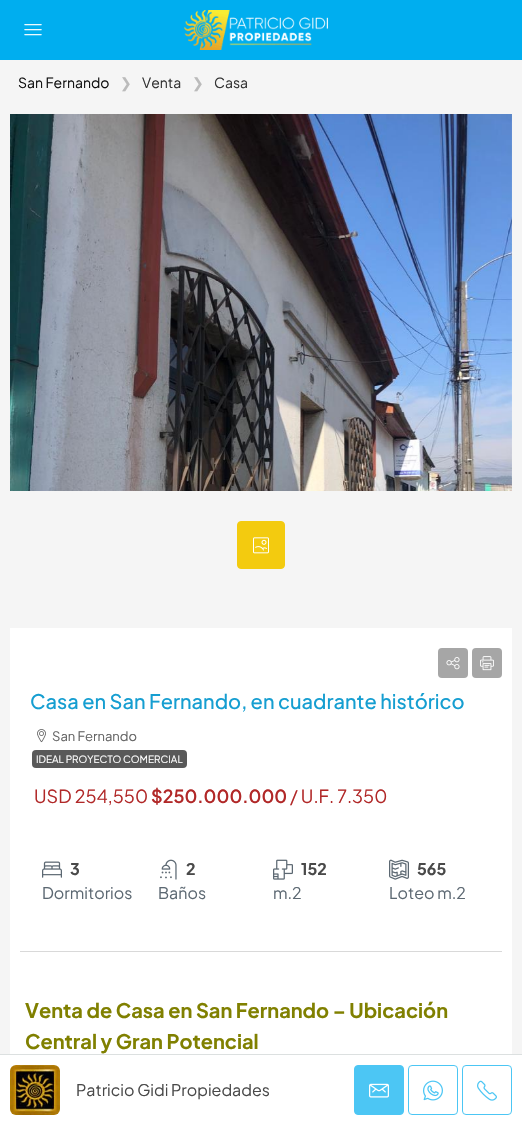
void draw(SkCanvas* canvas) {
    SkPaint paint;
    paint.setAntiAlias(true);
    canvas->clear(0xFFF5F5F5);
    paint.setColor(0xFF00AEEF);
    canvas->drawRect(SkRect::MakeXYWH(0, 0, 522, 60), paint);
    canvas->drawImageRect(SkImages::DeferredFromEncodedData(SkData::MakeFromFileName("img1.png")), SkRect::MakeXYWH(24, 24, 18, 12), SkSamplingOptions());
    canvas->drawImageRect(SkImages::DeferredFromEncodedData(SkData::MakeFromFileName("img2.png")), SkRect::MakeXYWH(184, 10, 144, 40), SkSamplingOptions());
    SkFont font1(fontMgr->matchFamilyStyle("Plus Jakarta Sans", SkFontStyle::Normal()), 14);
    font1.setSubpixel(true);
    paint.setColor(0xFF111111);
    canvas->drawString("San Fernando", 18, 88, font1, paint);
    SkFont font2(fontMgr->matchFamilyStyle("DejaVu Sans", SkFontStyle::Normal()), 14);
    font2.setSubpixel(true);
    paint.setColor(0xFFBBBBBB);
    canvas->drawString("❯", 120, 88, font2, paint);
    paint.setColor(0xFF333333);
    canvas->drawString("Venta", 142, 88, font1, paint);
    paint.setColor(0xFFBBBBBB);
    canvas->drawString("❯", 192, 88, font2, paint);
    paint.setColor(0xFF333333);
    canvas->drawString("Casa", 214, 88, font1, paint);
    canvas->drawImageRect(SkImages::DeferredFromEncodedData(SkData::MakeFromFileName("img3.png")), SkRect::MakeXYWH(10, 114, 502, 377), SkSamplingOptions());
    paint.setColor(0xFFF3CB0F);
    canvas->drawRoundRect(SkRect::MakeXYWH(237.5f, 521.5f, 47, 47), 3.5f, 3.5f, paint);
    paint.setStyle(SkPaint::kStroke_Style);
    paint.setStrokeWidth(1);
    canvas->drawRoundRect(SkRect::MakeXYWH(237.5f, 521.5f, 47, 47), 3.5f, 3.5f, paint);
    canvas->drawImageRect(SkImages::DeferredFromEncodedData(SkData::MakeFromFileName("img4.png")), SkRect::MakeXYWH(253, 537, 16, 17), SkSamplingOptions());
    paint.setStyle(SkPaint::kFill_Style);
    paint.setColor(0xFFFFFFFF);
    canvas->drawRect(SkRect::MakeXYWH(10, 628, 502, 426), paint);
    paint.setColor(0xFFA6A6A6);
    canvas->drawRoundRect(SkRect::MakeXYWH(438, 648, 30, 30), 4, 4, paint);
    canvas->drawImageRect(SkImages::DeferredFromEncodedData(SkData::MakeFromFileName("img5.png")), SkRect::MakeXYWH(446, 657, 14, 13), SkSamplingOptions());
    canvas->drawRoundRect(SkRect::MakeXYWH(472, 648, 30, 30), 4, 4, paint);
    canvas->drawImageRect(SkImages::DeferredFromEncodedData(SkData::MakeFromFileName("img6.png")), SkRect::MakeXYWH(480, 656, 14, 15), SkSamplingOptions());
    SkFont font3(fontMgr->matchFamilyStyle("Plus Jakarta Sans", SkFontStyle(500, SkFontStyle::kNormal_Width, SkFontStyle::kUpright_Slant)), 20);
    font3.setSubpixel(true);
    paint.setColor(0xFF159ED1);
    canvas->drawString("Casa en San Fernando, en cuadrante histórico", 30, 709, font3, paint);
    canvas->drawImageRect(SkImages::DeferredFromEncodedData(SkData::MakeFromFileName("img7.png")), SkRect::MakeXYWH(37, 729, 9, 14), SkSamplingOptions());
    SkFont font4(fontMgr->matchFamilyStyle("Plus Jakarta Sans", SkFontStyle::Normal()), 13);
    font4.setSubpixel(true);
    paint.setColor(0xFF636363);
    canvas->drawString("San Fernando", 52, 741, font4, paint);
    paint.setColor(0xFF595959);
    canvas->drawRoundRect(SkRect::MakeXYWH(32, 750, 155, 18), 4, 4, paint);
    SkFont font5(fontMgr->matchFamilyStyle("Plus Jakarta Sans", SkFontStyle::Normal()), 10);
    font5.setSubpixel(true);
    paint.setColor(0xFFFFFFFF);
    canvas->drawString("IDEAL PROYECTO COMERCIAL", 36, 763, font5, paint);
    SkFont font6(fontMgr->matchFamilyStyle("Plus Jakarta Sans", SkFontStyle::Normal()), 18);
    font6.setSubpixel(true);
    paint.setColor(0xFFB12828);
    canvas->drawString("USD 254,550", 34, 803, font6, paint);
    SkFont font7(fontMgr->matchFamilyStyle("Plus Jakarta Sans", SkFontStyle(600, SkFontStyle::kNormal_Width, SkFontStyle::kUpright_Slant)), 18);
    font7.setSubpixel(true);
    canvas->drawString("$250.000.000", 151, 803, font7, paint);
    canvas->drawString("/ U.F. 7.350", 290, 803, font6, paint);
    canvas->drawImageRect(SkImages::DeferredFromEncodedData(SkData::MakeFromFileName("img8.png")), SkRect::MakeXYWH(42, 861, 20, 17), SkSamplingOptions());
    SkFont font8(fontMgr->matchFamilyStyle("Plus Jakarta Sans", SkFontStyle::Bold()), 16);
    font8.setSubpixel(true);
    paint.setColor(0xFF494949);
    canvas->drawString("3", 70, 875, font8, paint);
    SkFont font9(fontMgr->matchFamilyStyle("Plus Jakarta Sans", SkFontStyle::Normal()), 16);
    font9.setSubpixel(true);
    paint.setColor(0xFF5C6872);
    canvas->drawString("Dormitorios", 42, 899, font9, paint);
    canvas->drawImageRect(SkImages::DeferredFromEncodedData(SkData::MakeFromFileName("img9.png")), SkRect::MakeXYWH(160, 859, 17, 21), SkSamplingOptions());
    paint.setColor(0xFF494949);
    canvas->drawString("2", 186, 875, font8, paint);
    paint.setColor(0xFF5C6872);
    canvas->drawString("Baños", 158, 899, font9, paint);
    canvas->drawImageRect(SkImages::DeferredFromEncodedData(SkData::MakeFromFileName("img10.png")), SkRect::MakeXYWH(273, 859, 20, 21), SkSamplingOptions());
    paint.setColor(0xFF494949);
    canvas->drawString("152", 301, 875, font8, paint);
    paint.setColor(0xFF5C6872);
    canvas->drawString("m.2", 273, 899, font9, paint);
    canvas->drawImageRect(SkImages::DeferredFromEncodedData(SkData::MakeFromFileName("img11.png")), SkRect::MakeXYWH(389, 859, 20, 21), SkSamplingOptions());
    paint.setColor(0xFF494949);
    canvas->drawString("565", 417, 875, font8, paint);
    paint.setColor(0xFF5C6872);
    canvas->drawString("Loteo m.2", 389, 899, font9, paint);
    paint.setColor(0xFFD9D9D9);
    canvas->drawRect(SkRect::MakeXYWH(20, 951, 482, 1), paint);
    SkFont font10(fontMgr->matchFamilyStyle("Plus Jakarta Sans", SkFontStyle::Bold()), 20);
    font10.setSubpixel(true);
    paint.setColor(0xFF808000);
    canvas->drawString("Venta de Casa en San Fernando – Ubicación", 25, 1018, font10, paint);
    canvas->drawString("Central y Gran Potencial", 25, 1049, font10, paint);
    paint.setColor(0xFFFFFFFF);
    canvas->drawRect(SkRect::MakeXYWH(0, 1055, 522, 70), paint);
    paint.setColor(0xFFDCE0E0);
    canvas->drawRect(SkRect::MakeXYWH(0, 1054, 522, 1), paint);
    canvas->drawImageRect(SkImages::DeferredFromEncodedData(SkData::MakeFromFileName("img12.png")), SkRect::MakeXYWH(10, 1065, 50, 50), SkSamplingOptions());
    paint.setColor(0xFF494949);
    canvas->drawString("Patricio Gidi Propiedades", 76, 1096, font9, paint);
    paint.setColor(0xFF4CC6F4);
    canvas->drawRoundRect(SkRect::MakeXYWH(354.5f, 1065.5f, 49, 49), 3.5f, 3.5f, paint);
    paint.setStyle(SkPaint::kStroke_Style);
    canvas->drawRoundRect(SkRect::MakeXYWH(354.5f, 1065.5f, 49, 49), 3.5f, 3.5f, paint);
    canvas->drawImageRect(SkImages::DeferredFromEncodedData(SkData::MakeFromFileName("img13.png")), SkRect::MakeXYWH(369, 1083, 20, 15), SkSamplingOptions());
    canvas->drawRoundRect(SkRect::MakeXYWH(408.5f, 1065.5f, 49, 49), 3.5f, 3.5f, paint);
    canvas->drawImageRect(SkImages::DeferredFromEncodedData(SkData::MakeFromFileName("img14.png")), SkRect::MakeXYWH(423, 1080, 20, 21), SkSamplingOptions());
    canvas->drawRoundRect(SkRect::MakeXYWH(462.5f, 1065.5f, 49, 49), 3.5f, 3.5f, paint);
    canvas->drawImageRect(SkImages::DeferredFromEncodedData(SkData::MakeFromFileName("img15.png")), SkRect::MakeXYWH(477, 1080, 20, 21), SkSamplingOptions());
}
